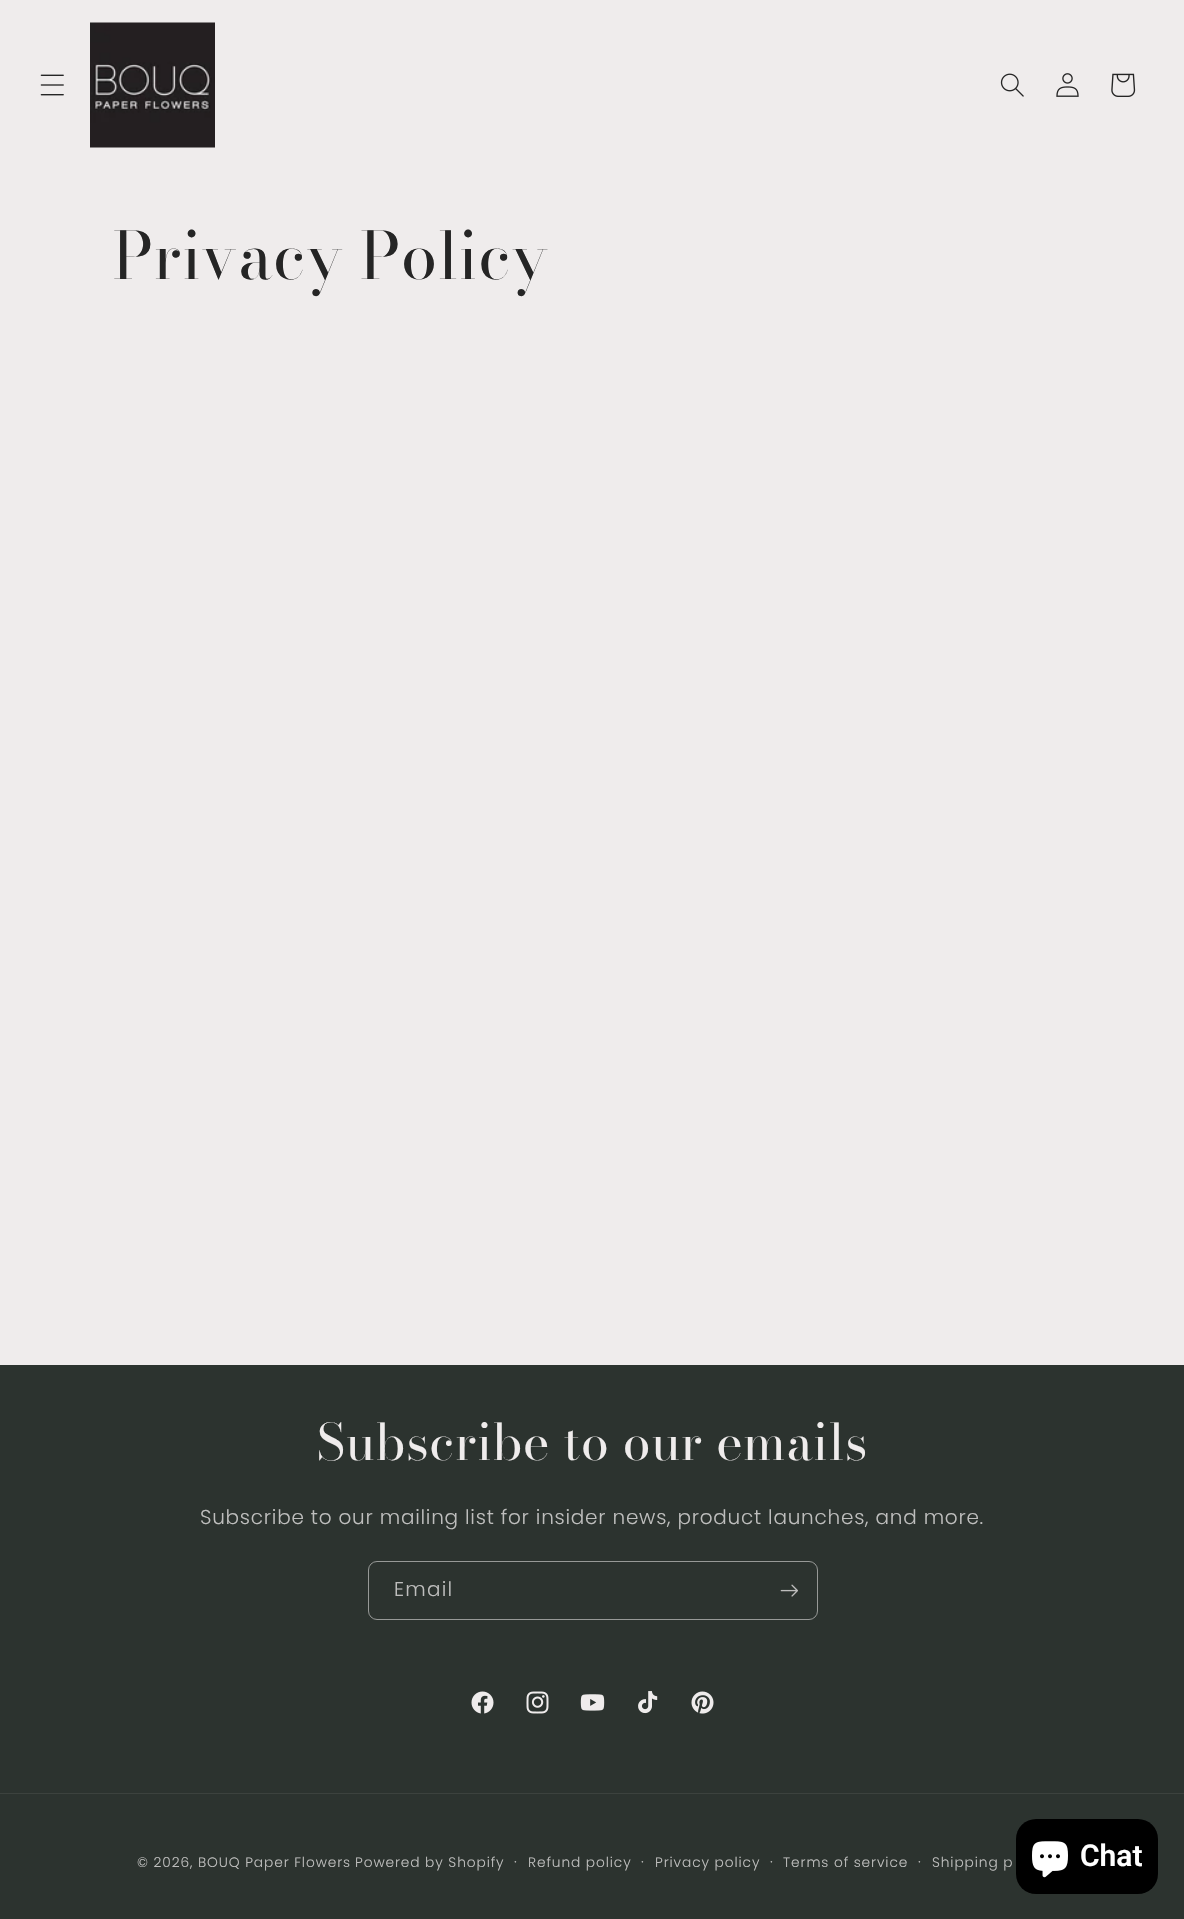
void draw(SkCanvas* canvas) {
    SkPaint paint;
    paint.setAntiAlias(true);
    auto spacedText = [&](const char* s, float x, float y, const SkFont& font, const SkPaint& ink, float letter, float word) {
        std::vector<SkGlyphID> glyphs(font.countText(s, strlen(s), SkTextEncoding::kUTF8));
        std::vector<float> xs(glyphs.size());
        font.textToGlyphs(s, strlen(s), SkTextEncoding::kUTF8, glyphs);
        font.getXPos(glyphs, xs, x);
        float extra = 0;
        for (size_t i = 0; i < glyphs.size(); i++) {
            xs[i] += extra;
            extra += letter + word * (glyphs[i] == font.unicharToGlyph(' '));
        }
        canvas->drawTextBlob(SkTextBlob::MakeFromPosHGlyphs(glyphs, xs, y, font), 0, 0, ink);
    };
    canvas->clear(0xFFEFECEC);
    canvas->drawImageRect(SkImages::DeferredFromEncodedData(SkData::MakeFromFileName("img1.png")), SkRect::MakeXYWH(40, 74, 24, 22), SkSamplingOptions());
    canvas->drawImageRect(SkImages::DeferredFromEncodedData(SkData::MakeFromFileName("img2.png")), SkRect::MakeXYWH(90, 22, 125, 126), SkSamplingOptions());
    canvas->drawImageRect(SkImages::DeferredFromEncodedData(SkData::MakeFromFileName("img3.png")), SkRect::MakeXYWH(1000, 73, 24, 24), SkSamplingOptions());
    canvas->drawImageRect(SkImages::DeferredFromEncodedData(SkData::MakeFromFileName("img4.png")), SkRect::MakeXYWH(1056, 73, 23, 24), SkSamplingOptions());
    canvas->drawImageRect(SkImages::DeferredFromEncodedData(SkData::MakeFromFileName("img5.png")), SkRect::MakeXYWH(1111, 73, 25, 24), SkSamplingOptions());
    SkFont font1(fontMgr->matchFamilyStyle("Bodoni Moda", SkFontStyle::Normal()), 65);
    font1.setSubpixel(true);
    paint.setColor(0xFF252525);
    spacedText("Privacy Policy", 113, 279, font1, paint, 0.75f, 0);
    paint.setColor(0xFF2C332F);
    canvas->drawRect(SkRect::MakeXYWH(0, 1365, 1184, 554), paint);
    SkFont font2(fontMgr->matchFamilyStyle("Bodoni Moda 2", SkFontStyle::Normal()), 50);
    font2.setSubpixel(true);
    paint.setColor(0xFFEFECEC);
    spacedText("Subscribe to our emails", 317, 1460, font2, paint, 0.75f, 0);
    SkFont font3(fontMgr->matchFamilyStyle("Poppins", SkFontStyle(300, SkFontStyle::kNormal_Width, SkFontStyle::kUpright_Slant)), 20);
    font3.setSubpixel(true);
    paint.setColor(0xFFBEBEBD);
    spacedText("Subscribe to our mailing list for insider news, product launches, and more.", 200, 1524, font3, paint, 0.75f, 0);
    paint.setStyle(SkPaint::kStroke_Style);
    paint.setStrokeWidth(1);
    paint.setColor(0xFF979997);
    canvas->drawRoundRect(SkRect::MakeXYWH(368.5f, 1561.5f, 449, 58), 8.5f, 8.5f, paint);
    paint.setStyle(SkPaint::kFill_Style);
    paint.setColor(0xFFBEBEBD);
    spacedText("Email", 394, 1596, font3, paint, 1.25f, 0);
    canvas->drawImageRect(SkImages::DeferredFromEncodedData(SkData::MakeFromFileName("img6.png")), SkRect::MakeXYWH(780, 1584, 18, 13), SkSamplingOptions());
    canvas->drawImageRect(SkImages::DeferredFromEncodedData(SkData::MakeFromFileName("img7.png")), SkRect::MakeXYWH(471, 1691, 23, 23), SkSamplingOptions());
    canvas->drawImageRect(SkImages::DeferredFromEncodedData(SkData::MakeFromFileName("img8.png")), SkRect::MakeXYWH(526, 1691, 23, 23), SkSamplingOptions());
    canvas->drawImageRect(SkImages::DeferredFromEncodedData(SkData::MakeFromFileName("img9.png")), SkRect::MakeXYWH(580, 1694, 25, 17), SkSamplingOptions());
    canvas->drawImageRect(SkImages::DeferredFromEncodedData(SkData::MakeFromFileName("img10.png")), SkRect::MakeXYWH(638, 1691, 20, 23), SkSamplingOptions());
    canvas->drawImageRect(SkImages::DeferredFromEncodedData(SkData::MakeFromFileName("img11.png")), SkRect::MakeXYWH(691, 1691, 23, 23), SkSamplingOptions());
    paint.setColor(0xFF3C423E);
    canvas->drawRect(SkRect::MakeXYWH(0, 1793, 1184, 1), paint);
    SkFont font4(fontMgr->matchFamilyStyle("Poppins", SkFontStyle(300, SkFontStyle::kNormal_Width, SkFontStyle::kUpright_Slant)), 13.75f);
    font4.setSubpixel(true);
    paint.setColor(0xFFBEBEBD);
    spacedText("© 2026, BOUQ Paper Flowers", 137, 1867, font4, paint, 0.9f, 0);
    spacedText("Powered by Shopify", 355, 1867, font4, paint, 0.9f, 0);
    SkFont font5(fontMgr->matchFamilyStyle("Poppins", SkFontStyle(300, SkFontStyle::kNormal_Width, SkFontStyle::kUpright_Slant)), 15);
    font5.setSubpixel(true);
    spacedText("·", 514, 1867, font5, paint, 0.9f, 0);
    spacedText("Refund policy", 528, 1867, font4, paint, 0.9f, 0);
    spacedText("·", 641, 1867, font5, paint, 0.9f, 0);
    spacedText("Privacy policy", 655, 1867, font4, paint, 0.9f, 0);
    spacedText("·", 770, 1867, font5, paint, 0.9f, 0);
    spacedText("Terms of service", 783, 1867, font4, paint, 0.9f, 0);
    spacedText("·", 918, 1867, font5, paint, 0.9f, 0);
    spacedText("Shipping p", 932, 1867, font4, paint, 0.9f, 0);
    paint.setColor(0xFF000000);
    canvas->drawRoundRect(SkRect::MakeXYWH(1016, 1819, 142, 75), 20, 20, paint);
    canvas->drawImageRect(SkImages::DeferredFromEncodedData(SkData::MakeFromFileName("img12.png")), SkRect::MakeXYWH(1032, 1841, 36, 37), SkSamplingOptions());
    SkFont font6(fontMgr->matchFamilyStyle("Roboto", SkFontStyle(600, SkFontStyle::kNormal_Width, SkFontStyle::kUpright_Slant)), 30);
    font6.setSubpixel(true);
    paint.setColor(0xFFFFFFFF);
    canvas->drawString("Chat", 1080, 1866, font6, paint);
}
